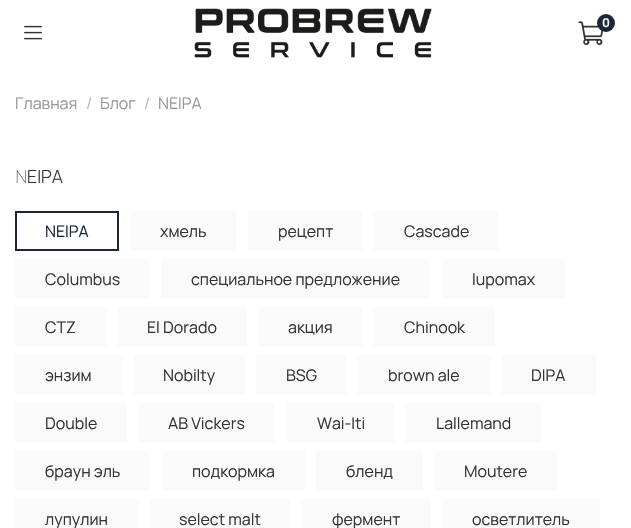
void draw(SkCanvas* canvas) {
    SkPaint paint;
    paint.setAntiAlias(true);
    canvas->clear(0xFFFFFFFF);
    canvas->drawImageRect(SkImages::DeferredFromEncodedData(SkData::MakeFromFileName("img1.png")), SkRect::MakeXYWH(194, 8, 238, 50), SkSamplingOptions());
    canvas->drawImageRect(SkImages::DeferredFromEncodedData(SkData::MakeFromFileName("img2.png")), SkRect::MakeXYWH(578, 21, 25, 24), SkSamplingOptions());
    paint.setColor(0xFF1B2738);
    canvas->drawCircle(606, 23, 9, paint);
    SkFont font1(fontMgr->matchFamilyStyle("Manrope", SkFontStyle::Bold()), 12);
    font1.setSubpixel(true);
    paint.setColor(0xFFFFFFFF);
    canvas->drawString("0", 602, 27, font1, paint);
    canvas->drawImageRect(SkImages::DeferredFromEncodedData(SkData::MakeFromFileName("img3.png")), SkRect::MakeXYWH(24, 25, 18, 15), SkSamplingOptions());
    SkFont font2(fontMgr->matchFamilyStyle("Manrope", SkFontStyle::Normal()), 16);
    font2.setSubpixel(true);
    paint.setColor(0xFF999999);
    canvas->drawString("Главная", 15, 109, font2, paint);
    paint.setColor(0xFFB8B8B8);
    canvas->drawString("/", 86, 109, font2, paint);
    paint.setColor(0xFF999999);
    canvas->drawString("Блог", 100, 109, font2, paint);
    paint.setColor(0xFFB8B8B8);
    canvas->drawString("/", 144, 109, font2, paint);
    paint.setColor(0xFF999999);
    canvas->drawString("NEIPA", 158, 109, font2, paint);
    SkFont font3(fontMgr->matchFamilyStyle("Noto Sans", SkFontStyle(100, SkFontStyle::kNormal_Width, SkFontStyle::kUpright_Slant)), 18);
    font3.setSubpixel(true);
    paint.setColor(0xFF333333);
    canvas->drawString("N", 15, 183, font3, paint);
    SkFont font4(fontMgr->matchFamilyStyle("Manrope", SkFontStyle(300, SkFontStyle::kNormal_Width, SkFontStyle::kUpright_Slant)), 18);
    font4.setSubpixel(true);
    canvas->drawString("EIPA", 27, 183, font4, paint);
    paint.setStyle(SkPaint::kStroke_Style);
    paint.setStrokeWidth(2);
    paint.setColor(0xFF1B2738);
    canvas->drawRect(SkRect::MakeXYWH(16, 212, 102, 38), paint);
    paint.setStyle(SkPaint::kFill_Style);
    canvas->drawString("NEIPA", 45, 237, font2, paint);
    paint.setColor(0xFFFAFAFA);
    canvas->drawRect(SkRect::MakeXYWH(130, 211, 106, 40), paint);
    paint.setColor(0xFF333333);
    canvas->drawString("хмель", 160, 237, font2, paint);
    paint.setColor(0xFFFAFAFA);
    canvas->drawRect(SkRect::MakeXYWH(248, 211, 115, 40), paint);
    paint.setColor(0xFF333333);
    canvas->drawString("рецепт", 278, 237, font2, paint);
    paint.setColor(0xFFFAFAFA);
    canvas->drawRect(SkRect::MakeXYWH(374, 211, 125, 40), paint);
    paint.setColor(0xFF333333);
    canvas->drawString("Cascade", 404, 237, font2, paint);
    paint.setColor(0xFFFAFAFA);
    canvas->drawRect(SkRect::MakeXYWH(15, 259, 135, 40), paint);
    paint.setColor(0xFF333333);
    canvas->drawString("Columbus", 45, 285, font2, paint);
    paint.setColor(0xFFFAFAFA);
    canvas->drawRect(SkRect::MakeXYWH(161, 259, 269, 40), paint);
    paint.setColor(0xFF333333);
    canvas->drawString("специальное предложение", 191, 285, font2, paint);
    paint.setColor(0xFFFAFAFA);
    canvas->drawRect(SkRect::MakeXYWH(442, 259, 123, 40), paint);
    paint.setColor(0xFF333333);
    canvas->drawString("lupomax", 472, 285, font2, paint);
    paint.setColor(0xFFFAFAFA);
    canvas->drawRect(SkRect::MakeXYWH(15, 307, 91, 40), paint);
    paint.setColor(0xFF333333);
    canvas->drawString("CTZ", 45, 333, font2, paint);
    paint.setColor(0xFFFAFAFA);
    canvas->drawRect(SkRect::MakeXYWH(117, 307, 130, 40), paint);
    paint.setColor(0xFF333333);
    canvas->drawString("El Dorado", 147, 333, font2, paint);
    paint.setColor(0xFFFAFAFA);
    canvas->drawRect(SkRect::MakeXYWH(258, 307, 105, 40), paint);
    paint.setColor(0xFF333333);
    canvas->drawString("акция", 288, 333, font2, paint);
    paint.setColor(0xFFFAFAFA);
    canvas->drawRect(SkRect::MakeXYWH(374, 307, 121, 40), paint);
    paint.setColor(0xFF333333);
    canvas->drawString("Chinook", 404, 333, font2, paint);
    paint.setColor(0xFFFAFAFA);
    canvas->drawRect(SkRect::MakeXYWH(15, 355, 107, 40), paint);
    paint.setColor(0xFF333333);
    canvas->drawString("энзим", 45, 381, font2, paint);
    paint.setColor(0xFFFAFAFA);
    canvas->drawRect(SkRect::MakeXYWH(133, 355, 112, 40), paint);
    paint.setColor(0xFF333333);
    canvas->drawString("Nobilty", 163, 381, font2, paint);
    paint.setColor(0xFFFAFAFA);
    canvas->drawRect(SkRect::MakeXYWH(256, 355, 91, 40), paint);
    paint.setColor(0xFF333333);
    canvas->drawString("BSG", 286, 381, font2, paint);
    paint.setColor(0xFFFAFAFA);
    canvas->drawRect(SkRect::MakeXYWH(358, 355, 132, 40), paint);
    paint.setColor(0xFF333333);
    canvas->drawString("brown ale", 388, 381, font2, paint);
    paint.setColor(0xFFFAFAFA);
    canvas->drawRect(SkRect::MakeXYWH(501, 355, 95, 40), paint);
    paint.setColor(0xFF333333);
    canvas->drawString("DIPA", 531, 381, font2, paint);
    paint.setColor(0xFFFAFAFA);
    canvas->drawRect(SkRect::MakeXYWH(15, 403, 112, 40), paint);
    paint.setColor(0xFF333333);
    canvas->drawString("Double", 45, 429, font2, paint);
    paint.setColor(0xFFFAFAFA);
    canvas->drawRect(SkRect::MakeXYWH(138, 403, 137, 40), paint);
    paint.setColor(0xFF333333);
    canvas->drawString("AB Vickers", 168, 429, font2, paint);
    paint.setColor(0xFFFAFAFA);
    canvas->drawRect(SkRect::MakeXYWH(287, 403, 108, 40), paint);
    paint.setColor(0xFF333333);
    canvas->drawString("Wai-Iti", 317, 429, font2, paint);
    paint.setColor(0xFFFAFAFA);
    canvas->drawRect(SkRect::MakeXYWH(406, 403, 135, 40), paint);
    paint.setColor(0xFF333333);
    canvas->drawString("Lallemand", 436, 429, font2, paint);
    paint.setColor(0xFFFAFAFA);
    canvas->drawRect(SkRect::MakeXYWH(15, 451, 135, 40), paint);
    paint.setColor(0xFF333333);
    canvas->drawString("браун эль", 45, 477, font2, paint);
    paint.setColor(0xFFFAFAFA);
    canvas->drawRect(SkRect::MakeXYWH(162, 451, 143, 40), paint);
    paint.setColor(0xFF333333);
    canvas->drawString("подкормка", 192, 477, font2, paint);
    paint.setColor(0xFFFAFAFA);
    canvas->drawRect(SkRect::MakeXYWH(316, 451, 107, 40), paint);
    paint.setColor(0xFF333333);
    canvas->drawString("бленд", 346, 477, font2, paint);
    paint.setColor(0xFFFAFAFA);
    canvas->drawRect(SkRect::MakeXYWH(434, 451, 123, 40), paint);
    paint.setColor(0xFF333333);
    canvas->drawString("Moutere", 464, 477, font2, paint);
    paint.setColor(0xFFFAFAFA);
    canvas->drawRect(SkRect::MakeXYWH(15, 499, 123, 29), paint);
    paint.setColor(0xFF333333);
    canvas->drawString("лупулин", 45, 525, font2, paint);
    paint.setColor(0xFFFAFAFA);
    canvas->drawRect(SkRect::MakeXYWH(149, 499, 142, 29), paint);
    paint.setColor(0xFF333333);
    canvas->drawString("select malt", 179, 525, font2, paint);
    paint.setColor(0xFFFAFAFA);
    canvas->drawRect(SkRect::MakeXYWH(302, 499, 129, 29), paint);
    paint.setColor(0xFF333333);
    canvas->drawString("фермент", 332, 525, font2, paint);
    paint.setColor(0xFFFAFAFA);
    canvas->drawRect(SkRect::MakeXYWH(442, 499, 158, 29), paint);
    paint.setColor(0xFF333333);
    canvas->drawString("осветлитель", 472, 525, font2, paint);
}
